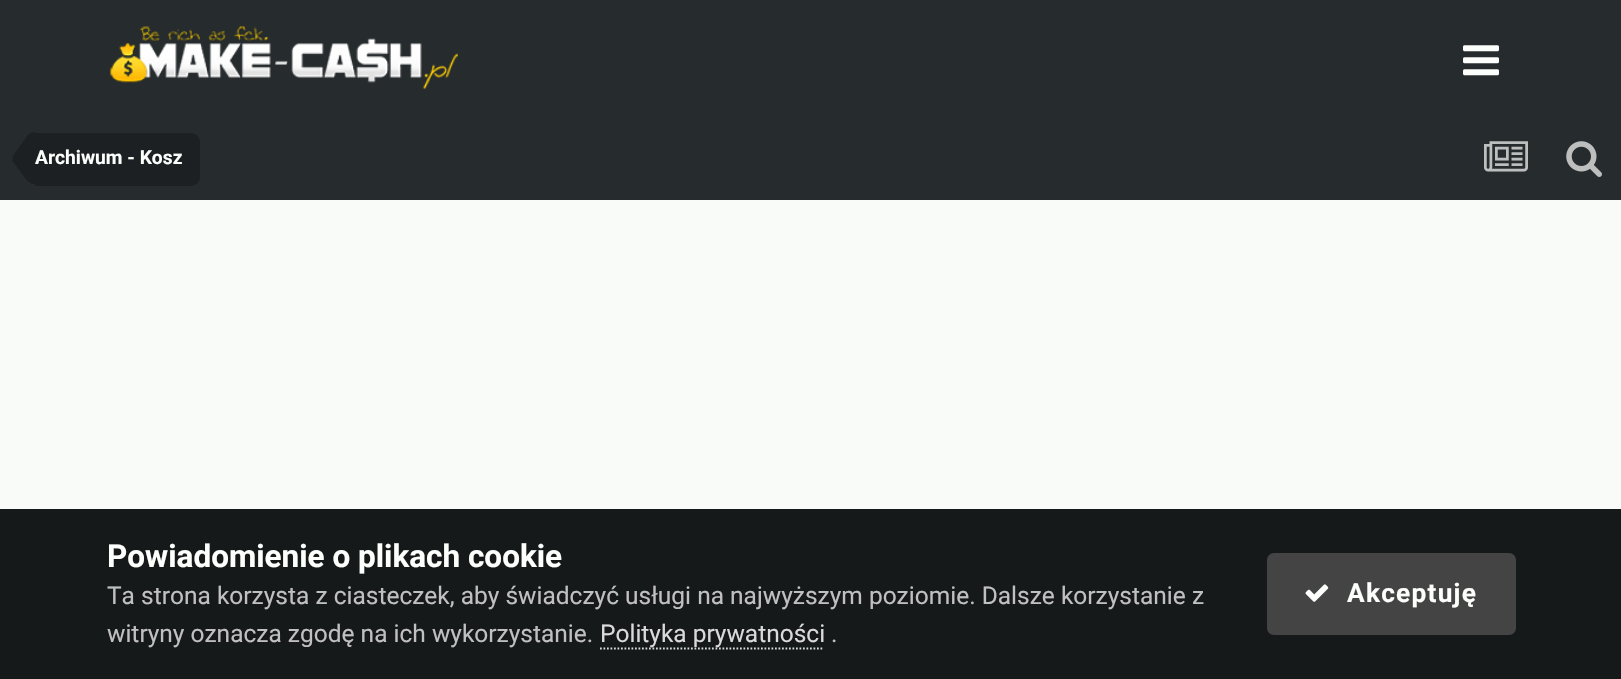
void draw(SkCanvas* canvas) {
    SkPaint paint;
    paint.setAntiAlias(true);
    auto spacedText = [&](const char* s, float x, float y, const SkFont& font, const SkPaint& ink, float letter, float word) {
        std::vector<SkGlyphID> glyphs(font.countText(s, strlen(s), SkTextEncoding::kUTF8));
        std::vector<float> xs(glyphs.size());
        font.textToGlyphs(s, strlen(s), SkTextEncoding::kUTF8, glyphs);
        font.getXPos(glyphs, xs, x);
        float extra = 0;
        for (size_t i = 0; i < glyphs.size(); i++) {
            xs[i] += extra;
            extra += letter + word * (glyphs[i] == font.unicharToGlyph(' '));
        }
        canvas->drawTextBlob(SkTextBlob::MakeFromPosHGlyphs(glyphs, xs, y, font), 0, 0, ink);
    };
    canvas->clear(0xFF262B2E);
    canvas->drawImageRect(SkImages::DeferredFromEncodedData(SkData::MakeFromFileName("img1.png")), SkRect::MakeXYWH(110, 26, 348, 63), SkSamplingOptions());
    canvas->drawImageRect(SkImages::DeferredFromEncodedData(SkData::MakeFromFileName("img2.png")), SkRect::MakeXYWH(1463, 45, 36, 31), SkSamplingOptions());
    paint.setColor(0xFF1D2023);
    canvas->drawPath(SkPathBuilder().moveTo(35, 133).lineTo(191, 133).cubicTo(196, 133, 200, 137, 200, 142).lineTo(200, 177).cubicTo(200, 182, 196, 186, 191, 186).lineTo(35, 186).close().detach(), paint);
    canvas->drawPath(SkPathBuilder().moveTo(12.5f, 161).lineTo(12.5f, 158.5f).lineTo(35, 158.5f).lineTo(35, 184).cubicTo(31, 184, 27.5f, 182, 25, 178).close().detach(), paint);
    paint.setColor(0x40000000);
    canvas->drawPath(SkPathBuilder().moveTo(35, 132).lineTo(35, 158.5f).lineTo(12.5f, 158.5f).lineTo(13, 155.5f).lineTo(25, 139).cubicTo(27.5f, 134.5f, 31, 132, 35, 132).close().detach(), paint);
    SkFont font1(fontMgr->matchFamilyStyle("Roboto", SkFontStyle::Bold()), 19.25f);
    font1.setSubpixel(true);
    paint.setColor(0xFFFDFFFC);
    canvas->drawString("Archiwum - Kosz", 35, 164, font1, paint);
    canvas->drawImageRect(SkImages::DeferredFromEncodedData(SkData::MakeFromFileName("img3.png")), SkRect::MakeXYWH(1484, 141, 44, 31), SkSamplingOptions());
    canvas->drawImageRect(SkImages::DeferredFromEncodedData(SkData::MakeFromFileName("img4.png")), SkRect::MakeXYWH(1566, 141, 36, 36), SkSamplingOptions());
    paint.setColor(0xFFF9FBF8);
    canvas->drawRect(SkRect::MakeXYWH(0, 200, 1621, 309), paint);
    paint.setColor(0xFF16191A);
    canvas->drawRect(SkRect::MakeXYWH(0, 509, 1621, 170), paint);
    SkFont font2(fontMgr->matchFamilyStyle("Roboto", SkFontStyle::Bold()), 31.5f);
    font2.setSubpixel(true);
    paint.setColor(0xFFFDFFFC);
    canvas->drawString("Powiadomienie o plikach cookie", 107, 567, font2, paint);
    SkFont font3(fontMgr->matchFamilyStyle("Roboto", SkFontStyle::Normal()), 24.5f);
    font3.setSubpixel(true);
    paint.setColor(0xFFC0C0C0);
    canvas->drawString("Ta strona korzysta z ciasteczek, aby świadczyć usługi na najwyższym poziomie. Dalsze korzystanie z", 107, 604, font3, paint);
    canvas->drawString("witryny oznacza zgodę na ich wykorzystanie.", 107, 642, font3, paint);
    paint.setStyle(SkPaint::kStroke_Style);
    paint.setStrokeWidth(1.8f);
    paint.setColor(0xFFDADADA);
    paint.setPathEffect(SkDashPathEffect::Make({{1.75f, 1.75f}}, 0));
    canvas->drawPath(SkPathBuilder().moveTo(600, 648.5f).lineTo(824, 648.5f).detach(), paint);
    paint.setPathEffect(nullptr);
    paint.setStyle(SkPaint::kFill_Style);
    canvas->drawString("Polityka prywatności", 600, 642, font3, paint);
    paint.setColor(0xFFC0C0C0);
    canvas->drawString(".", 831, 642, font3, paint);
    paint.setColor(0xFF444444);
    canvas->drawRoundRect(SkRect::MakeXYWH(1267, 553, 249, 82), 7, 7, paint);
    canvas->drawImageRect(SkImages::DeferredFromEncodedData(SkData::MakeFromFileName("img5.png")), SkRect::MakeXYWH(1305, 584, 24, 18), SkSamplingOptions());
    SkFont font4(fontMgr->matchFamilyStyle("Roboto", SkFontStyle::Bold()), 26.25f);
    font4.setSubpixel(true);
    paint.setColor(0xFFFDFFFC);
    spacedText("Akceptuję", 1347, 602, font4, paint, 1.25f, 0);
}
